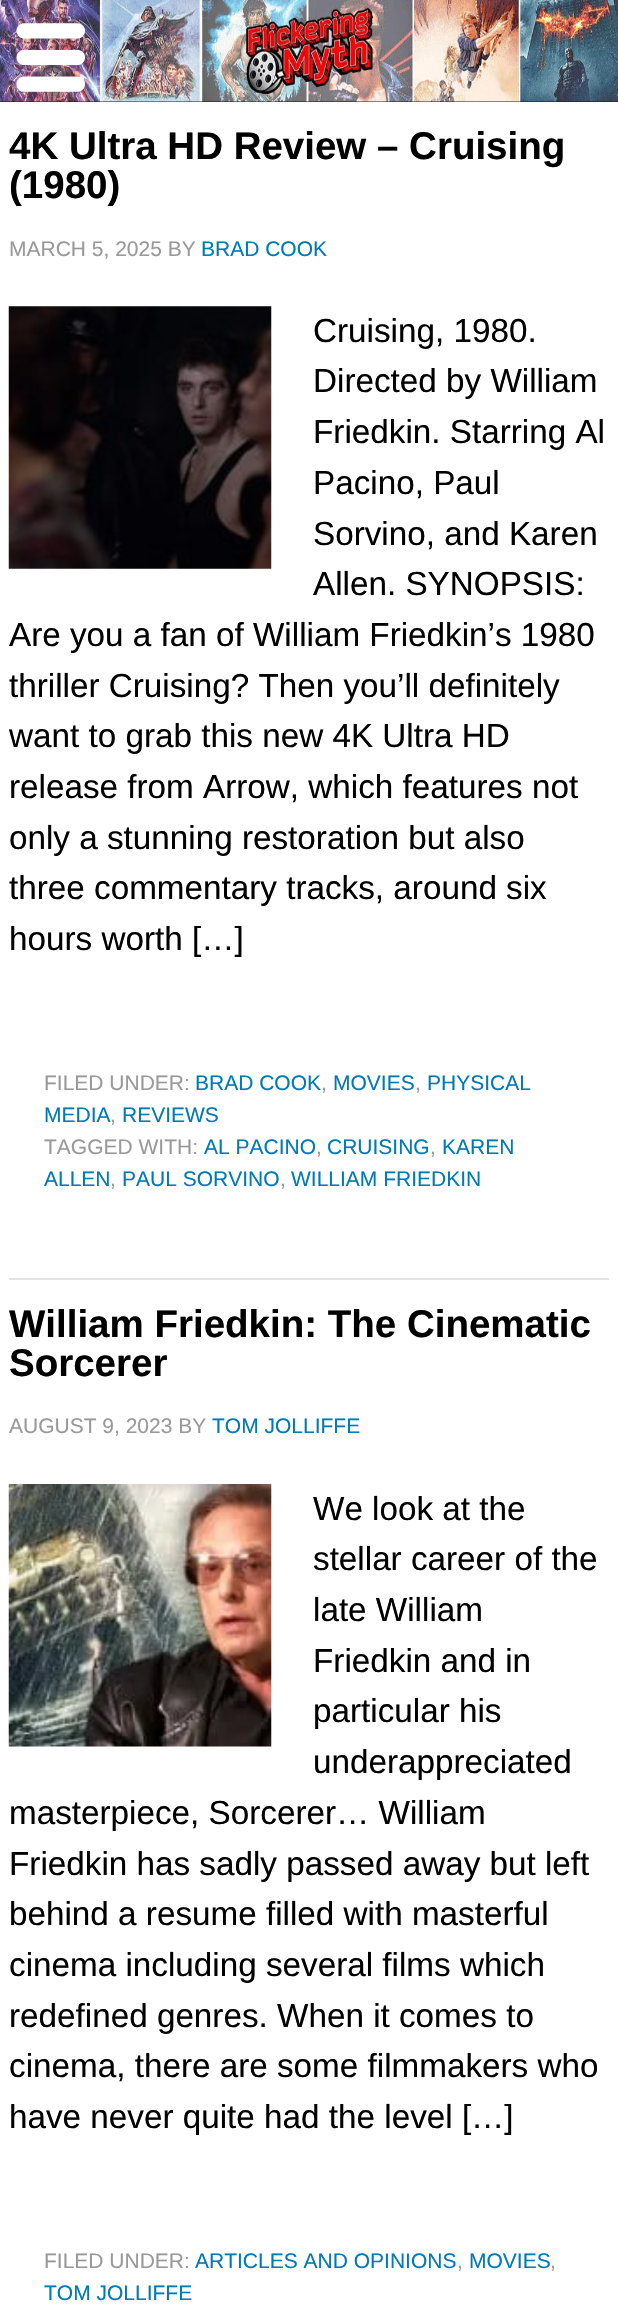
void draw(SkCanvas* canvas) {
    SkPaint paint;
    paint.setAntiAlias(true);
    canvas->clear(0xFFFFFFFF);
    paint.setColor(0xFF111111);
    canvas->drawRect(SkRect::MakeXYWH(0, 101, 618, 1), paint);
    canvas->drawImageRect(SkImages::DeferredFromEncodedData(SkData::MakeFromFileName("img1.png")), SkRect::MakeXYWH(0, 0, 618, 102), SkSamplingOptions());
    canvas->drawImageRect(SkImages::DeferredFromEncodedData(SkData::MakeFromFileName("img2.png")), SkRect::MakeXYWH(16, 23, 69, 69), SkSamplingOptions());
    paint.setColor(0xFFE3E3E3);
    canvas->drawRect(SkRect::MakeXYWH(9, 1278, 600, 2), paint);
    SkFont font1(fontMgr->matchFamilyStyle("Liberation Sans", SkFontStyle::Bold()), 38.5f);
    font1.setSubpixel(true);
    paint.setColor(0xFF000000);
    canvas->drawString("4K Ultra HD Review – Cruising", 9, 159, font1, paint);
    canvas->drawString("(1980)", 9, 198, font1, paint);
    SkFont font2(fontMgr->matchFamilyStyle("Liberation Sans", SkFontStyle::Normal()), 21);
    font2.setSubpixel(true);
    paint.setColor(0xFF999999);
    canvas->drawString("MARCH 5, 2025 BY", 9, 256, font2, paint);
    paint.setColor(0xFF007AB7);
    canvas->drawString("BRAD COOK", 201, 256, font2, paint);
    canvas->drawImageRect(SkImages::DeferredFromEncodedData(SkData::MakeFromFileName("img3.png")), SkRect::MakeXYWH(8, 306, 264, 263), SkSamplingOptions());
    SkFont font3(fontMgr->matchFamilyStyle("Liberation Sans", SkFontStyle::Normal()), 33.25f);
    font3.setSubpixel(true);
    paint.setColor(0xFF000000);
    canvas->drawString("Cruising, 1980.", 313, 342, font3, paint);
    canvas->drawString("Directed by William", 313, 392, font3, paint);
    canvas->drawString("Friedkin. Starring Al", 313, 443, font3, paint);
    canvas->drawString("Pacino, Paul", 313, 494, font3, paint);
    canvas->drawString("Sorvino, and Karen", 313, 545, font3, paint);
    canvas->drawString("Allen. SYNOPSIS:", 313, 595, font3, paint);
    canvas->drawString("Are you a fan of William Friedkin’s 1980", 9, 646, font3, paint);
    canvas->drawString("thriller Cruising? Then you’ll definitely", 9, 697, font3, paint);
    canvas->drawString("want to grab this new 4K Ultra HD", 9, 747, font3, paint);
    canvas->drawString("release from Arrow, which features not", 9, 798, font3, paint);
    canvas->drawString("only a stunning restoration but also", 9, 849, font3, paint);
    canvas->drawString("three commentary tracks, around six", 9, 899, font3, paint);
    canvas->drawString("hours worth […]", 9, 950, font3, paint);
    paint.setColor(0xFF999999);
    canvas->drawString("FILED UNDER:", 44, 1090, font2, paint);
    paint.setColor(0xFF007AB7);
    canvas->drawString("BRAD COOK", 195, 1090, font2, paint);
    paint.setColor(0xFF999999);
    canvas->drawString(",", 321, 1090, font2, paint);
    paint.setColor(0xFF007AB7);
    canvas->drawString("MOVIES", 333, 1090, font2, paint);
    paint.setColor(0xFF999999);
    canvas->drawString(",", 415, 1090, font2, paint);
    paint.setColor(0xFF007AB7);
    canvas->drawString("PHYSICAL", 427, 1090, font2, paint);
    canvas->drawString("MEDIA", 44, 1122, font2, paint);
    paint.setColor(0xFF999999);
    canvas->drawString(",", 110, 1122, font2, paint);
    paint.setColor(0xFF007AB7);
    canvas->drawString("REVIEWS", 122, 1122, font2, paint);
    paint.setColor(0xFF999999);
    canvas->drawString("TAGGED WITH:", 44, 1154, font2, paint);
    paint.setColor(0xFF007AB7);
    canvas->drawString("AL PACINO", 204, 1154, font2, paint);
    paint.setColor(0xFF999999);
    canvas->drawString(",", 316, 1154, font2, paint);
    paint.setColor(0xFF007AB7);
    canvas->drawString("CRUISING", 327, 1154, font2, paint);
    paint.setColor(0xFF999999);
    canvas->drawString(",", 430, 1154, font2, paint);
    paint.setColor(0xFF007AB7);
    canvas->drawString("KAREN", 442, 1154, font2, paint);
    canvas->drawString("ALLEN", 44, 1186, font2, paint);
    paint.setColor(0xFF999999);
    canvas->drawString(",", 110, 1186, font2, paint);
    paint.setColor(0xFF007AB7);
    canvas->drawString("PAUL SORVINO", 122, 1186, font2, paint);
    paint.setColor(0xFF999999);
    canvas->drawString(",", 280, 1186, font2, paint);
    paint.setColor(0xFF007AB7);
    canvas->drawString("WILLIAM FRIEDKIN", 291, 1186, font2, paint);
    paint.setColor(0xFF000000);
    canvas->drawString("William Friedkin: The Cinematic", 9, 1337, font1, paint);
    canvas->drawString("Sorcerer", 9, 1376, font1, paint);
    paint.setColor(0xFF999999);
    canvas->drawString("AUGUST 9, 2023 BY", 9, 1433, font2, paint);
    paint.setColor(0xFF007AB7);
    canvas->drawString("TOM JOLLIFFE", 212, 1433, font2, paint);
    canvas->drawImageRect(SkImages::DeferredFromEncodedData(SkData::MakeFromFileName("img4.png")), SkRect::MakeXYWH(8, 1484, 264, 263), SkSamplingOptions());
    paint.setColor(0xFF000000);
    canvas->drawString("We look at the", 313, 1520, font3, paint);
    canvas->drawString("stellar career of the", 313, 1570, font3, paint);
    canvas->drawString("late William", 313, 1621, font3, paint);
    canvas->drawString("Friedkin and in", 313, 1672, font3, paint);
    canvas->drawString("particular his", 313, 1722, font3, paint);
    canvas->drawString("underappreciated", 313, 1773, font3, paint);
    canvas->drawString("masterpiece, Sorcerer… William", 9, 1824, font3, paint);
    canvas->drawString("Friedkin has sadly passed away but left", 9, 1875, font3, paint);
    canvas->drawString("behind a resume filled with masterful", 9, 1925, font3, paint);
    canvas->drawString("cinema including several films which", 9, 1976, font3, paint);
    canvas->drawString("redefined genres. When it comes to", 9, 2027, font3, paint);
    canvas->drawString("cinema, there are some filmmakers who", 9, 2077, font3, paint);
    canvas->drawString("have never quite had the level […]", 9, 2128, font3, paint);
    paint.setColor(0xFF999999);
    canvas->drawString("FILED UNDER:", 44, 2268, font2, paint);
    paint.setColor(0xFF007AB7);
    canvas->drawString("ARTICLES AND OPINIONS", 195, 2268, font2, paint);
    paint.setColor(0xFF999999);
    canvas->drawString(",", 457, 2268, font2, paint);
    paint.setColor(0xFF007AB7);
    canvas->drawString("MOVIES", 469, 2268, font2, paint);
    paint.setColor(0xFF999999);
    canvas->drawString(",", 550, 2268, font2, paint);
    paint.setColor(0xFF007AB7);
    canvas->drawString("TOM JOLLIFFE", 44, 2300, font2, paint);
}
